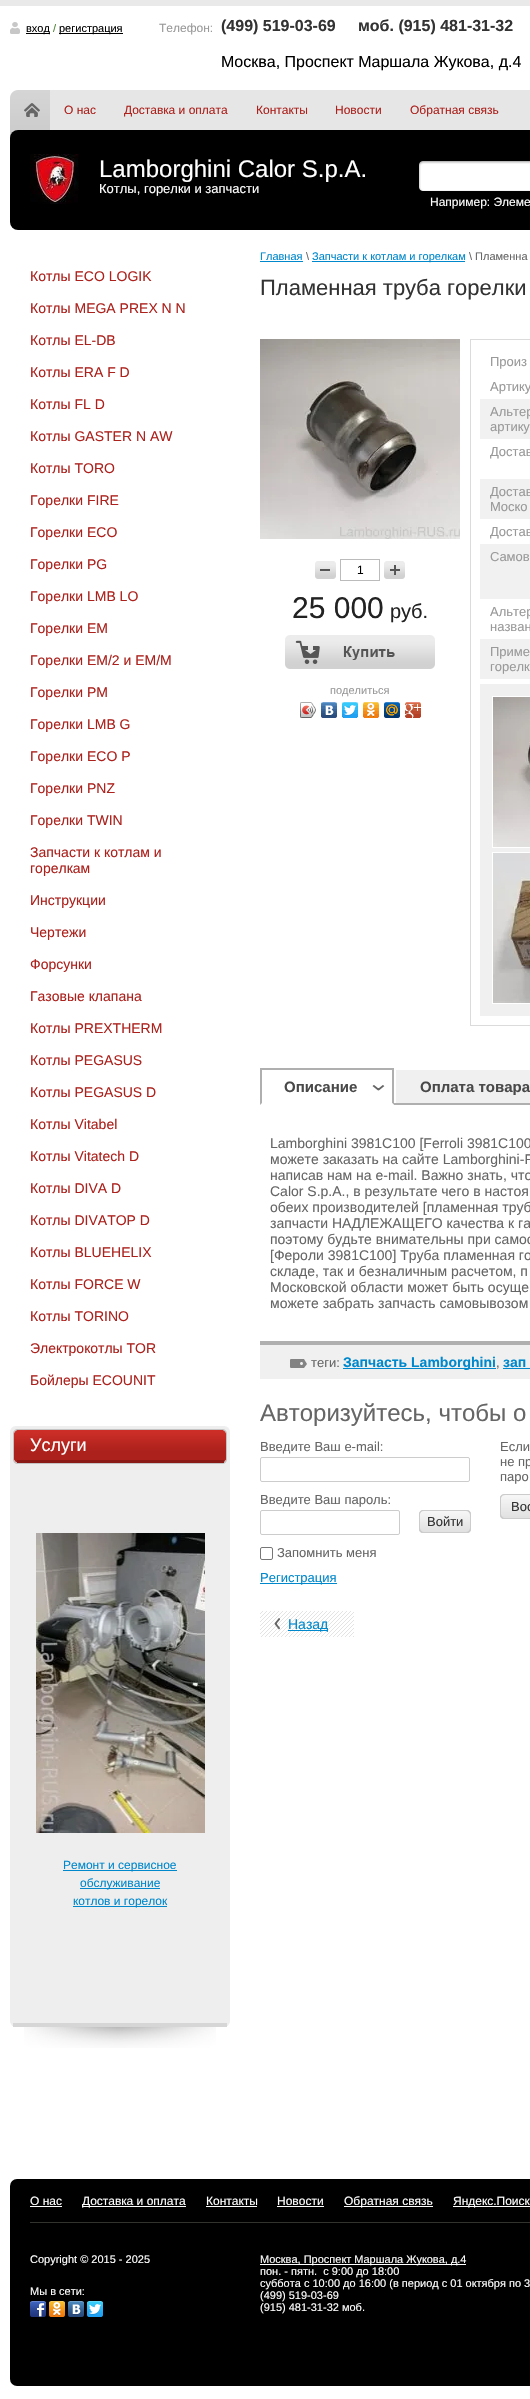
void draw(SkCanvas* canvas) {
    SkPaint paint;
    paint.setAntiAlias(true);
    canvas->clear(0xFFFFFFFF);
    paint.setColor(0xFFE9E9E9);
    canvas->drawRect(SkRect::MakeXYWH(0, 0, 530, 6), paint);
    canvas->drawImageRect(SkImages::DeferredFromEncodedData(SkData::MakeFromFileName("img1.png")), SkRect::MakeXYWH(10, 22, 10, 12), SkSamplingOptions());
    paint.setColor(0xFF000000);
    canvas->drawRect(SkRect::MakeXYWH(26, 33, 24, 1), paint);
    SkFont font1(fontMgr->matchFamilyStyle("Liberation Sans", SkFontStyle::Normal()), 11);
    font1.setSubpixel(true);
    canvas->drawString("вход", 26, 32, font1, paint);
    paint.setColor(0xFF4E8535);
    canvas->drawString("/", 53, 32, font1, paint);
    paint.setColor(0xFF000000);
    canvas->drawRect(SkRect::MakeXYWH(59, 33, 64, 1), paint);
    canvas->drawString("регистрация", 59, 32, font1, paint);
    SkFont font2(fontMgr->matchFamilyStyle("Liberation Sans", SkFontStyle::Normal()), 12);
    font2.setSubpixel(true);
    paint.setColor(0xFF999999);
    canvas->drawString("Телефон:", 159, 32, font2, paint);
    SkFont font3(fontMgr->matchFamilyStyle("Liberation Sans", SkFontStyle::Bold()), 16);
    font3.setSubpixel(true);
    paint.setColor(0xFF333333);
    canvas->drawString("(499) 519-03-69", 221, 31, font3, paint);
    canvas->drawString("моб. (915) 481-31-32", 358, 31, font3, paint);
    SkFont font4(fontMgr->matchFamilyStyle("Liberation Sans", SkFontStyle::Normal()), 16);
    font4.setSubpixel(true);
    paint.setColor(0xFF000000);
    canvas->drawString("Москва, Проспект Маршала Жукова, д.4", 221, 67, font4, paint);
    paint.setColor(0xFFE6E6E6);
    canvas->drawRect(SkRect::MakeXYWH(50, 90, 480, 40), paint);
    canvas->drawImageRect(SkImages::DeferredFromEncodedData(SkData::MakeFromFileName("img2.png")), SkRect::MakeXYWH(10, 90, 40, 40), SkSamplingOptions());
    paint.setColor(0xFFCECECE);
    canvas->drawRect(SkRect::MakeXYWH(10, 130, 10, 7), paint);
    paint.setColor(0xFFAC211C);
    canvas->drawString("О нас", 64, 114, font2, paint);
    canvas->drawString("Доставка и оплата", 124, 114, font2, paint);
    canvas->drawString("Контакты", 256, 114, font2, paint);
    canvas->drawString("Новости", 335, 114, font2, paint);
    canvas->drawString("Обратная связь", 410, 114, font2, paint);
    paint.setColor(0xFF000000);
    canvas->drawRoundRect(SkRect::MakeXYWH(10, 130, 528, 100), 8, 8, paint);
    canvas->drawImageRect(SkImages::DeferredFromEncodedData(SkData::MakeFromFileName("img3.png")), SkRect::MakeXYWH(30, 154, 49, 50), SkSamplingOptions());
    SkFont font5(fontMgr->matchFamilyStyle("Liberation Sans", SkFontStyle::Normal()), 24);
    font5.setSubpixel(true);
    paint.setColor(0xFFFFFFFF);
    canvas->drawString("Lamborghini Calor S.p.A.", 99, 177, font5, paint);
    SkFont font6(fontMgr->matchFamilyStyle("Liberation Sans", SkFontStyle::Normal()), 13);
    font6.setSubpixel(true);
    canvas->drawString("Котлы, горелки и запчасти", 99, 193, font6, paint);
    canvas->drawImageRect(SkImages::DeferredFromEncodedData(SkData::MakeFromFileName("img4.png")), SkRect::MakeXYWH(419, 161, 111, 30), SkSamplingOptions());
    canvas->drawString("Например: Элеме", 430, 206, font2, paint);
    SkFont font7(fontMgr->matchFamilyStyle("Liberation Sans", SkFontStyle::Normal()), 14);
    font7.setSubpixel(true);
    paint.setColor(0xFFAC211C);
    canvas->drawString("Котлы ECO LOGIK", 30, 281, font7, paint);
    canvas->drawString("Котлы MEGA PREX N N", 30, 313, font7, paint);
    canvas->drawString("Котлы EL-DB", 30, 345, font7, paint);
    canvas->drawString("Котлы ERA F D", 30, 377, font7, paint);
    canvas->drawString("Котлы FL D", 30, 409, font7, paint);
    canvas->drawString("Котлы GASTER N AW", 30, 441, font7, paint);
    canvas->drawString("Котлы TORO", 30, 473, font7, paint);
    canvas->drawString("Горелки FIRE", 30, 505, font7, paint);
    canvas->drawString("Горелки ECO", 30, 537, font7, paint);
    canvas->drawString("Горелки PG", 30, 569, font7, paint);
    canvas->drawString("Горелки LMB LO", 30, 601, font7, paint);
    canvas->drawString("Горелки EM", 30, 633, font7, paint);
    canvas->drawString("Горелки EM/2 и EM/M", 30, 665, font7, paint);
    canvas->drawString("Горелки PM", 30, 697, font7, paint);
    canvas->drawString("Горелки LMB G", 30, 729, font7, paint);
    canvas->drawString("Горелки ECO P", 30, 761, font7, paint);
    canvas->drawString("Горелки PNZ", 30, 793, font7, paint);
    canvas->drawString("Горелки TWIN", 30, 825, font7, paint);
    canvas->drawString("Запчасти к котлам и", 30, 857, font7, paint);
    canvas->drawString("горелкам", 30, 873, font7, paint);
    canvas->drawString("Инструкции", 30, 905, font7, paint);
    canvas->drawString("Чертежи", 30, 937, font7, paint);
    canvas->drawString("Форсунки", 30, 969, font7, paint);
    canvas->drawString("Газовые клапана", 30, 1001, font7, paint);
    canvas->drawString("Котлы PREXTHERM", 30, 1033, font7, paint);
    canvas->drawString("Котлы PEGASUS", 30, 1065, font7, paint);
    canvas->drawString("Котлы PEGASUS D", 30, 1097, font7, paint);
    canvas->drawString("Котлы Vitabel", 30, 1129, font7, paint);
    canvas->drawString("Котлы Vitatech D", 30, 1161, font7, paint);
    canvas->drawString("Котлы DIVA D", 30, 1193, font7, paint);
    canvas->drawString("Котлы DIVATOP D", 30, 1225, font7, paint);
    canvas->drawString("Котлы BLUEHELIX", 30, 1257, font7, paint);
    canvas->drawString("Котлы FORCE W", 30, 1289, font7, paint);
    canvas->drawString("Котлы TORINO", 30, 1321, font7, paint);
    canvas->drawString("Электрокотлы TOR", 30, 1353, font7, paint);
    canvas->drawString("Бойлеры ECOUNIT", 30, 1385, font7, paint);
    paint.setColor(0xFFEEEEEE);
    canvas->drawRoundRect(SkRect::MakeXYWH(10, 1426, 220, 601), 6, 6, paint);
    paint.setColor(0xFFD6D6D6);
    canvas->drawRect(SkRect::MakeXYWH(13, 2023, 214, 4), paint);
    paint.setColor(0xFFC4C4C4);
    canvas->drawPath(SkPathBuilder().moveTo(15, 1432).cubicTo(14, 1433, 13, 1434, 13, 1436).lineTo(13, 1459).cubicTo(13, 1462, 15, 1464, 18, 1464).lineTo(220, 1464).cubicTo(222, 1464, 223, 1463, 224, 1462).cubicTo(223, 1463, 222, 1463, 221, 1463).lineTo(19, 1463).cubicTo(16, 1463, 14, 1461, 14, 1458).lineTo(14, 1435).cubicTo(14, 1434, 14, 1433, 15, 1432).close().detach(), paint);
    canvas->drawPath(SkPathBuilder().moveTo(20, 1429).cubicTo(18, 1429, 17, 1430, 16, 1431).cubicTo(17, 1430, 18, 1430, 19, 1430).lineTo(221, 1430).cubicTo(224, 1430, 226, 1432, 226, 1435).lineTo(226, 1458).cubicTo(226, 1459, 226, 1460, 225, 1461).cubicTo(226, 1460, 227, 1459, 227, 1457).lineTo(227, 1434).cubicTo(227, 1431, 225, 1429, 222, 1429).close().detach(), paint);
    canvas->drawPath(SkPathBuilder().moveTo(18, 1429).cubicTo(15, 1429, 13, 1431, 13, 1434).lineTo(13, 1457).cubicTo(13, 1459, 14, 1460, 15, 1461).cubicTo(14, 1460, 14, 1459, 14, 1458).lineTo(14, 1435).cubicTo(14, 1432, 16, 1430, 19, 1430).lineTo(221, 1430).cubicTo(222, 1430, 223, 1430, 224, 1431).cubicTo(223, 1430, 222, 1429, 220, 1429).close().detach(), paint);
    canvas->drawPath(SkPathBuilder().moveTo(16, 1462).cubicTo(17, 1463, 18, 1464, 20, 1464).lineTo(222, 1464).cubicTo(225, 1464, 227, 1462, 227, 1459).lineTo(227, 1436).cubicTo(227, 1434, 226, 1433, 225, 1432).cubicTo(226, 1433, 226, 1434, 226, 1435).lineTo(226, 1458).cubicTo(226, 1461, 224, 1463, 221, 1463).lineTo(19, 1463).cubicTo(18, 1463, 17, 1463, 16, 1462).close().detach(), paint);
    paint.setColor(0xFFAC211C);
    canvas->drawRoundRect(SkRect::MakeXYWH(14, 1430, 212, 33), 5, 5, paint);
    canvas->drawImageRect(SkImages::DeferredFromEncodedData(SkData::MakeFromFileName("img5.png")), SkRect::MakeXYWH(14, 1430, 212, 30), SkSamplingOptions());
    paint.setColor(0xFF8A1A16);
    canvas->drawRect(SkRect::MakeXYWH(17, 1460, 207, 3), paint);
    SkFont font8(fontMgr->matchFamilyStyle("Liberation Sans", SkFontStyle::Normal()), 18);
    font8.setSubpixel(true);
    paint.setColor(0xFFFFFFFF);
    canvas->drawString("Услуги", 30, 1451, font8, paint);
    canvas->drawImageRect(SkImages::DeferredFromEncodedData(SkData::MakeFromFileName("img6.png")), SkRect::MakeXYWH(36, 1533, 169, 300), SkSamplingOptions());
    paint.setColor(0xFF0088CC);
    canvas->drawRect(SkRect::MakeXYWH(63, 1870, 114, 1), paint);
    canvas->drawString("Ремонт и сервисное", 63, 1869, font2, paint);
    canvas->drawRect(SkRect::MakeXYWH(80, 1888, 80, 1), paint);
    canvas->drawString("обслуживание", 80, 1887, font2, paint);
    canvas->drawRect(SkRect::MakeXYWH(73, 1906, 94, 1), paint);
    canvas->drawString("котлов и горелок", 73, 1905, font2, paint);
    canvas->drawImageRect(SkImages::DeferredFromEncodedData(SkData::MakeFromFileName("img7.png")), SkRect::MakeXYWH(24, 2027, 192, 21), SkSamplingOptions());
    canvas->drawString("Главная", 260, 260, font1, paint);
    canvas->drawRect(SkRect::MakeXYWH(260, 261, 43, 1), paint);
    paint.setColor(0xFF666666);
    canvas->drawString("\\", 306, 260, font1, paint);
    paint.setColor(0xFF0088CC);
    canvas->drawRect(SkRect::MakeXYWH(312, 261, 153, 1), paint);
    canvas->drawString("Запчасти к котлам и горелкам", 312, 260, font1, paint);
    paint.setColor(0xFF666666);
    canvas->drawString("\\ Пламенна", 469, 260, font1, paint);
    SkFont font9(fontMgr->matchFamilyStyle("Liberation Sans", SkFontStyle::Normal()), 22);
    font9.setSubpixel(true);
    paint.setColor(0xFF333333);
    canvas->drawString("Пламенная труба горелки", 260, 295, font9, paint);
    canvas->drawImageRect(SkImages::DeferredFromEncodedData(SkData::MakeFromFileName("img8.png")), SkRect::MakeXYWH(260, 339, 200, 200), SkSamplingOptions());
    canvas->drawImageRect(SkImages::DeferredFromEncodedData(SkData::MakeFromFileName("img9.png")), SkRect::MakeXYWH(315, 561, 21, 18), SkSamplingOptions());
    paint.setStyle(SkPaint::kStroke_Style);
    paint.setStrokeWidth(1);
    paint.setColor(0xFFBBBBBB);
    canvas->drawRect(SkRect::MakeXYWH(340.5f, 559.5f, 39, 21), paint);
    paint.setStyle(SkPaint::kFill_Style);
    paint.setColor(0xFF000000);
    canvas->drawString("1", 357, 574, font2, paint);
    canvas->drawImageRect(SkImages::DeferredFromEncodedData(SkData::MakeFromFileName("img10.png")), SkRect::MakeXYWH(384, 561, 21, 18), SkSamplingOptions());
    SkFont font10(fontMgr->matchFamilyStyle("Liberation Sans", SkFontStyle::Normal()), 30);
    font10.setSubpixel(true);
    paint.setColor(0xFF222222);
    canvas->drawString("25 000", 292, 618, font10, paint);
    SkFont font11(fontMgr->matchFamilyStyle("Liberation Sans", SkFontStyle::Normal()), 20);
    font11.setSubpixel(true);
    canvas->drawString("руб.", 390, 618, font11, paint);
    canvas->drawImageRect(SkImages::DeferredFromEncodedData(SkData::MakeFromFileName("img11.png")), SkRect::MakeXYWH(285, 635, 150, 34), SkSamplingOptions());
    paint.setColor(0xFF999999);
    canvas->drawString("поделиться", 330, 694, font1, paint);
    canvas->drawImageRect(SkImages::DeferredFromEncodedData(SkData::MakeFromFileName("img12.png")), SkRect::MakeXYWH(300, 702, 16, 16), SkSamplingOptions());
    canvas->drawImageRect(SkImages::DeferredFromEncodedData(SkData::MakeFromFileName("img13.png")), SkRect::MakeXYWH(300, 702, 16, 16), SkSamplingOptions());
    canvas->drawImageRect(SkImages::DeferredFromEncodedData(SkData::MakeFromFileName("img14.png")), SkRect::MakeXYWH(321, 702, 16, 16), SkSamplingOptions());
    canvas->drawImageRect(SkImages::DeferredFromEncodedData(SkData::MakeFromFileName("img15.png")), SkRect::MakeXYWH(342, 702, 16, 16), SkSamplingOptions());
    canvas->drawImageRect(SkImages::DeferredFromEncodedData(SkData::MakeFromFileName("img16.png")), SkRect::MakeXYWH(363, 702, 16, 16), SkSamplingOptions());
    canvas->drawImageRect(SkImages::DeferredFromEncodedData(SkData::MakeFromFileName("img17.png")), SkRect::MakeXYWH(384, 702, 16, 16), SkSamplingOptions());
    canvas->drawImageRect(SkImages::DeferredFromEncodedData(SkData::MakeFromFileName("img18.png")), SkRect::MakeXYWH(405, 702, 16, 16), SkSamplingOptions());
    paint.setStyle(SkPaint::kStroke_Style);
    paint.setColor(0xFFDBDBDB);
    canvas->drawRect(SkRect::MakeXYWH(470.5f, 339.5f, 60, 686), paint);
    paint.setStyle(SkPaint::kFill_Style);
    paint.setColor(0xFF999999);
    canvas->drawString("Произ", 490, 366, font6, paint);
    canvas->drawString("Артику", 490, 391, font6, paint);
    paint.setColor(0xFFF1F1F1);
    canvas->drawRect(SkRect::MakeXYWH(480, 399, 50, 40), paint);
    paint.setColor(0xFF999999);
    canvas->drawString("Альтер", 490, 416, font6, paint);
    canvas->drawString("артику", 490, 431, font6, paint);
    canvas->drawString("Достав", 490, 456, font6, paint);
    paint.setColor(0xFFF1F1F1);
    canvas->drawRect(SkRect::MakeXYWH(480, 479, 50, 40), paint);
    paint.setColor(0xFF999999);
    canvas->drawString("Достав", 490, 496, font6, paint);
    canvas->drawString("Моско", 490, 511, font6, paint);
    canvas->drawString("Достав", 490, 536, font6, paint);
    paint.setColor(0xFFF1F1F1);
    canvas->drawRect(SkRect::MakeXYWH(480, 544, 50, 55), paint);
    paint.setColor(0xFF999999);
    canvas->drawString("Самов", 490, 561, font6, paint);
    canvas->drawString("Альтер", 490, 616, font6, paint);
    canvas->drawString("назван", 490, 631, font6, paint);
    paint.setColor(0xFFF1F1F1);
    canvas->drawRect(SkRect::MakeXYWH(480, 639, 50, 40), paint);
    paint.setColor(0xFF999999);
    canvas->drawString("Приме", 490, 656, font6, paint);
    canvas->drawString("горелк", 490, 671, font6, paint);
    paint.setColor(0xFFF0F0F0);
    canvas->drawRect(SkRect::MakeXYWH(480, 684, 50, 332), paint);
    paint.setStyle(SkPaint::kStroke_Style);
    paint.setColor(0xFFFFFFFF);
    canvas->drawRect(SkRect::MakeXYWH(492.5f, 696.5f, 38, 151), paint);
    canvas->drawImageRect(SkImages::DeferredFromEncodedData(SkData::MakeFromFileName("img19.png")), SkRect::MakeXYWH(493, 697, 37, 150), SkSamplingOptions());
    canvas->drawRect(SkRect::MakeXYWH(492.5f, 852.5f, 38, 151), paint);
    canvas->drawImageRect(SkImages::DeferredFromEncodedData(SkData::MakeFromFileName("img20.png")), SkRect::MakeXYWH(493, 853, 37, 150), SkSamplingOptions());
    paint.setStyle(SkPaint::kFill_Style);
    paint.setColor(0xFFAFAFAF);
    canvas->drawRect(SkRect::MakeXYWH(260, 1341, 270, 4), paint);
    canvas->drawRect(SkRect::MakeXYWH(394, 1103, 136, 2), paint);
    canvas->drawImageRect(SkImages::DeferredFromEncodedData(SkData::MakeFromFileName("img21.png")), SkRect::MakeXYWH(372, 1085, 13, 6), SkSamplingOptions());
    canvas->drawRect(SkRect::MakeXYWH(260, 1068, 134, 2), paint);
    canvas->drawPath(SkPathBuilder().moveTo(394, 1068).lineTo(394, 1105).lineTo(392, 1103).lineTo(392, 1070).close().detach(), paint);
    paint.setColor(0xFFFFFFFF);
    canvas->drawPath(SkPathBuilder().moveTo(394, 1105).lineTo(260, 1105).lineTo(262, 1103).lineTo(392, 1103).close().detach(), paint);
    paint.setColor(0xFFAFAFAF);
    canvas->drawPath(SkPathBuilder().moveTo(260, 1105).lineTo(260, 1068).lineTo(262, 1070).lineTo(262, 1103).close().detach(), paint);
    SkFont font12(fontMgr->matchFamilyStyle("Liberation Sans", SkFontStyle::Bold()), 15);
    font12.setSubpixel(true);
    paint.setColor(0xFF494949);
    canvas->drawString("Описание", 284, 1092, font12, paint);
    paint.setColor(0xFFF0F0F0);
    canvas->drawRect(SkRect::MakeXYWH(396, 1070, 134, 33), paint);
    paint.setColor(0xFF494949);
    canvas->drawString("Оплата товара", 420, 1092, font12, paint);
    paint.setColor(0xFF666666);
    canvas->drawString("Lamborghini 3981C100 [Ferroli 3981C100", 270, 1148, font7, paint);
    canvas->drawString("можете заказать на сайте Lamborghini-R", 270, 1164, font7, paint);
    canvas->drawString("написав нам на e-mail. Важно знать, что", 270, 1180, font7, paint);
    canvas->drawString("Calor S.p.A., в результате чего в настоя", 270, 1196, font7, paint);
    canvas->drawString("обеих производителей [пламенная труб", 270, 1212, font7, paint);
    canvas->drawString("запчасти НАДЛЕЖАЩЕГО качества к га", 270, 1228, font7, paint);
    canvas->drawString("поэтому будьте внимательны при самос", 270, 1244, font7, paint);
    canvas->drawString("[Фероли 3981C100] Труба пламенная го", 270, 1260, font7, paint);
    canvas->drawString("складе, так и безналичным расчетом, п", 270, 1276, font7, paint);
    canvas->drawString("Московской области может быть осуще", 270, 1292, font7, paint);
    canvas->drawString("можете забрать запчасть самовывозом", 270, 1308, font7, paint);
    paint.setColor(0xFFF0F0F0);
    canvas->drawRect(SkRect::MakeXYWH(260, 1345, 270, 34), paint);
    canvas->drawImageRect(SkImages::DeferredFromEncodedData(SkData::MakeFromFileName("img22.png")), SkRect::MakeXYWH(290, 1359, 17, 9), SkSamplingOptions());
    paint.setColor(0xFF666666);
    canvas->drawString("теги:", 311, 1367, font6, paint);
    paint.setColor(0xFF0088CC);
    canvas->drawRect(SkRect::MakeXYWH(343, 1368, 153, 1), paint);
    SkFont font13(fontMgr->matchFamilyStyle("Liberation Sans", SkFontStyle::Bold()), 14);
    font13.setSubpixel(true);
    canvas->drawString("Запчасть Lamborghini", 343, 1367, font13, paint);
    paint.setColor(0xFF666666);
    canvas->drawString(",", 496, 1367, font6, paint);
    paint.setColor(0xFF0088CC);
    canvas->drawString("зап", 503, 1367, font13, paint);
    canvas->drawRect(SkRect::MakeXYWH(503, 1368, 27, 1), paint);
    paint.setColor(0xFF666666);
    canvas->drawString("Авторизуйтесь, чтобы о", 260, 1421, font5, paint);
    canvas->drawString("Введите Ваш e-mail:", 260, 1451, font6, paint);
    paint.setStyle(SkPaint::kStroke_Style);
    paint.setColor(0xFFCCCCCC);
    canvas->drawRoundRect(SkRect::MakeXYWH(260.5f, 1457.5f, 209, 24), 1.5f, 1.5f, paint);
    paint.setStyle(SkPaint::kFill_Style);
    paint.setColor(0xFF666666);
    canvas->drawString("Введите Ваш пароль:", 260, 1504, font6, paint);
    paint.setStyle(SkPaint::kStroke_Style);
    paint.setColor(0xFFCCCCCC);
    canvas->drawRoundRect(SkRect::MakeXYWH(260.5f, 1510.5f, 139, 24), 1.5f, 1.5f, paint);
    paint.setStyle(SkPaint::kFill_Style);
    {
        const SkColor colors[] = {0xFFF8F8F8, 0xFFDFDFDF};
        const float stops[] = {0, 1};
        const SkPoint ends[] = {{445, 1510}, {445, 1533}};
        paint.setShader(SkGradientShader::MakeLinear(ends, colors, stops, 2, SkTileMode::kClamp));
        paint.setAlpha(255);
    }
    canvas->drawRoundRect(SkRect::MakeXYWH(419, 1510, 52, 23), 4, 4, paint);
    paint.setShader(nullptr);
    paint.setColor(0xFFCCCCCC);
    canvas->drawPath(SkPathBuilder().moveTo(421, 1511).cubicTo(420, 1511, 419, 1513, 419, 1514).lineTo(419, 1529).cubicTo(419, 1531, 421, 1533, 423, 1533).lineTo(467, 1533).cubicTo(468, 1533, 470, 1532, 470, 1531).lineTo(468, 1532).lineTo(424, 1532).cubicTo(422, 1532, 420, 1530, 420, 1528).lineTo(420, 1513).close().detach(), paint);
    canvas->drawPath(SkPathBuilder().moveTo(422, 1511).lineTo(466, 1511).cubicTo(468, 1511, 470, 1513, 470, 1515).lineTo(470, 1530).lineTo(469, 1532).cubicTo(470, 1532, 471, 1530, 471, 1529).lineTo(471, 1514).cubicTo(471, 1512, 469, 1510, 467, 1510).lineTo(423, 1510).cubicTo(422, 1510, 420, 1511, 420, 1512).close().detach(), paint);
    canvas->drawPath(SkPathBuilder().moveTo(420, 1531).cubicTo(420, 1532, 422, 1533, 423, 1533).lineTo(467, 1533).cubicTo(469, 1533, 471, 1531, 471, 1529).lineTo(471, 1514).cubicTo(471, 1513, 470, 1511, 469, 1511).lineTo(470, 1513).lineTo(470, 1528).cubicTo(470, 1530, 468, 1532, 466, 1532).lineTo(422, 1532).close().detach(), paint);
    canvas->drawPath(SkPathBuilder().moveTo(424, 1511).lineTo(468, 1511).lineTo(470, 1512).cubicTo(470, 1511, 468, 1510, 467, 1510).lineTo(423, 1510).cubicTo(421, 1510, 419, 1512, 419, 1514).lineTo(419, 1529).cubicTo(419, 1530, 420, 1532, 421, 1532).cubicTo(419, 1530, 420, 1525, 420, 1522).cubicTo(420, 1519, 418, 1511, 424, 1511).close().detach(), paint);
    paint.setColor(0xFF333333);
    canvas->drawString("Войти", 427, 1526, font6, paint);
    paint.setStyle(SkPaint::kStroke_Style);
    paint.setColor(0xFF767676);
    canvas->drawRoundRect(SkRect::MakeXYWH(260.5f, 1547.5f, 12, 12), 1.5f, 1.5f, paint);
    paint.setStyle(SkPaint::kFill_Style);
    paint.setColor(0xFF666666);
    canvas->drawString("Запомнить меня", 277, 1557, font6, paint);
    paint.setColor(0xFF0088CC);
    canvas->drawRect(SkRect::MakeXYWH(260, 1583, 77, 1), paint);
    canvas->drawString("Регистрация", 260, 1582, font6, paint);
    paint.setColor(0xFF666666);
    canvas->drawString("Если", 500, 1451, font6, paint);
    canvas->drawString("не пр", 500, 1466, font6, paint);
    canvas->drawString("паро", 500, 1481, font6, paint);
    {
        const SkColor colors[] = {0xFFF8F8F8, 0xFFDFDFDF};
        const float stops[] = {0, 1};
        const SkPoint ends[] = {{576, 1494}, {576, 1519}};
        paint.setShader(SkGradientShader::MakeLinear(ends, colors, stops, 2, SkTileMode::kClamp));
        paint.setAlpha(255);
    }
    canvas->drawRoundRect(SkRect::MakeXYWH(500, 1494, 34, 25), 4, 4, paint);
    paint.setShader(nullptr);
    paint.setColor(0xFFCCCCCC);
    canvas->drawPath(SkPathBuilder().moveTo(502, 1495).cubicTo(501, 1495, 500, 1497, 500, 1498).lineTo(500, 1515).cubicTo(500, 1517, 502, 1519, 504, 1519).lineTo(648, 1519).cubicTo(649, 1519, 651, 1518, 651, 1517).lineTo(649, 1518).lineTo(505, 1518).cubicTo(503, 1518, 501, 1516, 501, 1514).lineTo(501, 1497).close().detach(), paint);
    canvas->drawPath(SkPathBuilder().moveTo(501, 1517).cubicTo(501, 1518, 503, 1519, 504, 1519).lineTo(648, 1519).cubicTo(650, 1519, 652, 1517, 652, 1515).lineTo(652, 1498).cubicTo(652, 1497, 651, 1495, 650, 1495).lineTo(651, 1497).lineTo(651, 1514).cubicTo(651, 1516, 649, 1518, 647, 1518).lineTo(503, 1518).close().detach(), paint);
    canvas->drawPath(SkPathBuilder().moveTo(505, 1495).lineTo(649, 1495).lineTo(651, 1496).cubicTo(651, 1495, 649, 1494, 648, 1494).lineTo(504, 1494).cubicTo(502, 1494, 500, 1496, 500, 1498).lineTo(500, 1515).cubicTo(500, 1516, 501, 1518, 502, 1518).cubicTo(500, 1516, 501, 1510, 501, 1508).cubicTo(501, 1504, 499, 1495, 505, 1495).close().detach(), paint);
    paint.setColor(0xFF333333);
    canvas->drawString("Вос", 511, 1511, font6, paint);
    canvas->drawImageRect(SkImages::DeferredFromEncodedData(SkData::MakeFromFileName("img23.png")), SkRect::MakeXYWH(260, 1611, 94, 26), SkSamplingOptions());
    canvas->drawImageRect(SkImages::DeferredFromEncodedData(SkData::MakeFromFileName("img24.png")), SkRect::MakeXYWH(274, 1618, 6, 12), SkSamplingOptions());
    paint.setColor(0xFF0088CC);
    canvas->drawRect(SkRect::MakeXYWH(288, 1630, 40, 1), paint);
    canvas->drawString("Назад", 288, 1629, font7, paint);
    paint.setColor(0xFF000000);
    canvas->drawRoundRect(SkRect::MakeXYWH(10, 2179, 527, 207), 7, 7, paint);
    paint.setColor(0xFF33332D);
    canvas->drawRect(SkRect::MakeXYWH(30, 2222, 500, 1), paint);
    paint.setColor(0xFFFFFFFF);
    canvas->drawString("О нас", 30, 2205, font2, paint);
    canvas->drawRect(SkRect::MakeXYWH(30, 2206, 32, 1), paint);
    canvas->drawRect(SkRect::MakeXYWH(82, 2206, 104, 1), paint);
    canvas->drawString("Доставка и оплата", 82, 2205, font2, paint);
    canvas->drawString("Контакты", 206, 2205, font2, paint);
    canvas->drawRect(SkRect::MakeXYWH(206, 2206, 51, 1), paint);
    canvas->drawString("Новости", 277, 2205, font2, paint);
    canvas->drawRect(SkRect::MakeXYWH(277, 2206, 47, 1), paint);
    canvas->drawRect(SkRect::MakeXYWH(344, 2206, 89, 1), paint);
    canvas->drawString("Обратная связь", 344, 2205, font2, paint);
    canvas->drawRect(SkRect::MakeXYWH(453, 2206, 77, 1), paint);
    canvas->drawString("Яндекс.Поиск", 453, 2205, font2, paint);
    canvas->drawString("Copyright © 2015 - 2025", 30, 2263, font1, paint);
    canvas->drawString("Мы в сети:", 30, 2295, font1, paint);
    canvas->drawImageRect(SkImages::DeferredFromEncodedData(SkData::MakeFromFileName("img25.png")), SkRect::MakeXYWH(30, 2301, 16, 16), SkSamplingOptions());
    canvas->drawImageRect(SkImages::DeferredFromEncodedData(SkData::MakeFromFileName("img26.png")), SkRect::MakeXYWH(49, 2301, 16, 16), SkSamplingOptions());
    canvas->drawImageRect(SkImages::DeferredFromEncodedData(SkData::MakeFromFileName("img27.png")), SkRect::MakeXYWH(68, 2301, 16, 16), SkSamplingOptions());
    canvas->drawImageRect(SkImages::DeferredFromEncodedData(SkData::MakeFromFileName("img28.png")), SkRect::MakeXYWH(87, 2301, 16, 16), SkSamplingOptions());
    canvas->drawRect(SkRect::MakeXYWH(260, 2264, 206, 1), paint);
    canvas->drawString("Москва, Проспект Маршала Жукова, д.4", 260, 2263, font1, paint);
    canvas->drawString("пон. - пятн.  с 9:00 до 18:00", 260, 2275, font1, paint);
    canvas->drawString("суббота с 10:00 до 16:00 (в период с 01 октября по 3", 260, 2287, font1, paint);
    canvas->drawString("(499) 519-03-69", 260, 2299, font1, paint);
    canvas->drawString("(915) 481-31-32 моб.", 260, 2311, font1, paint);
}
